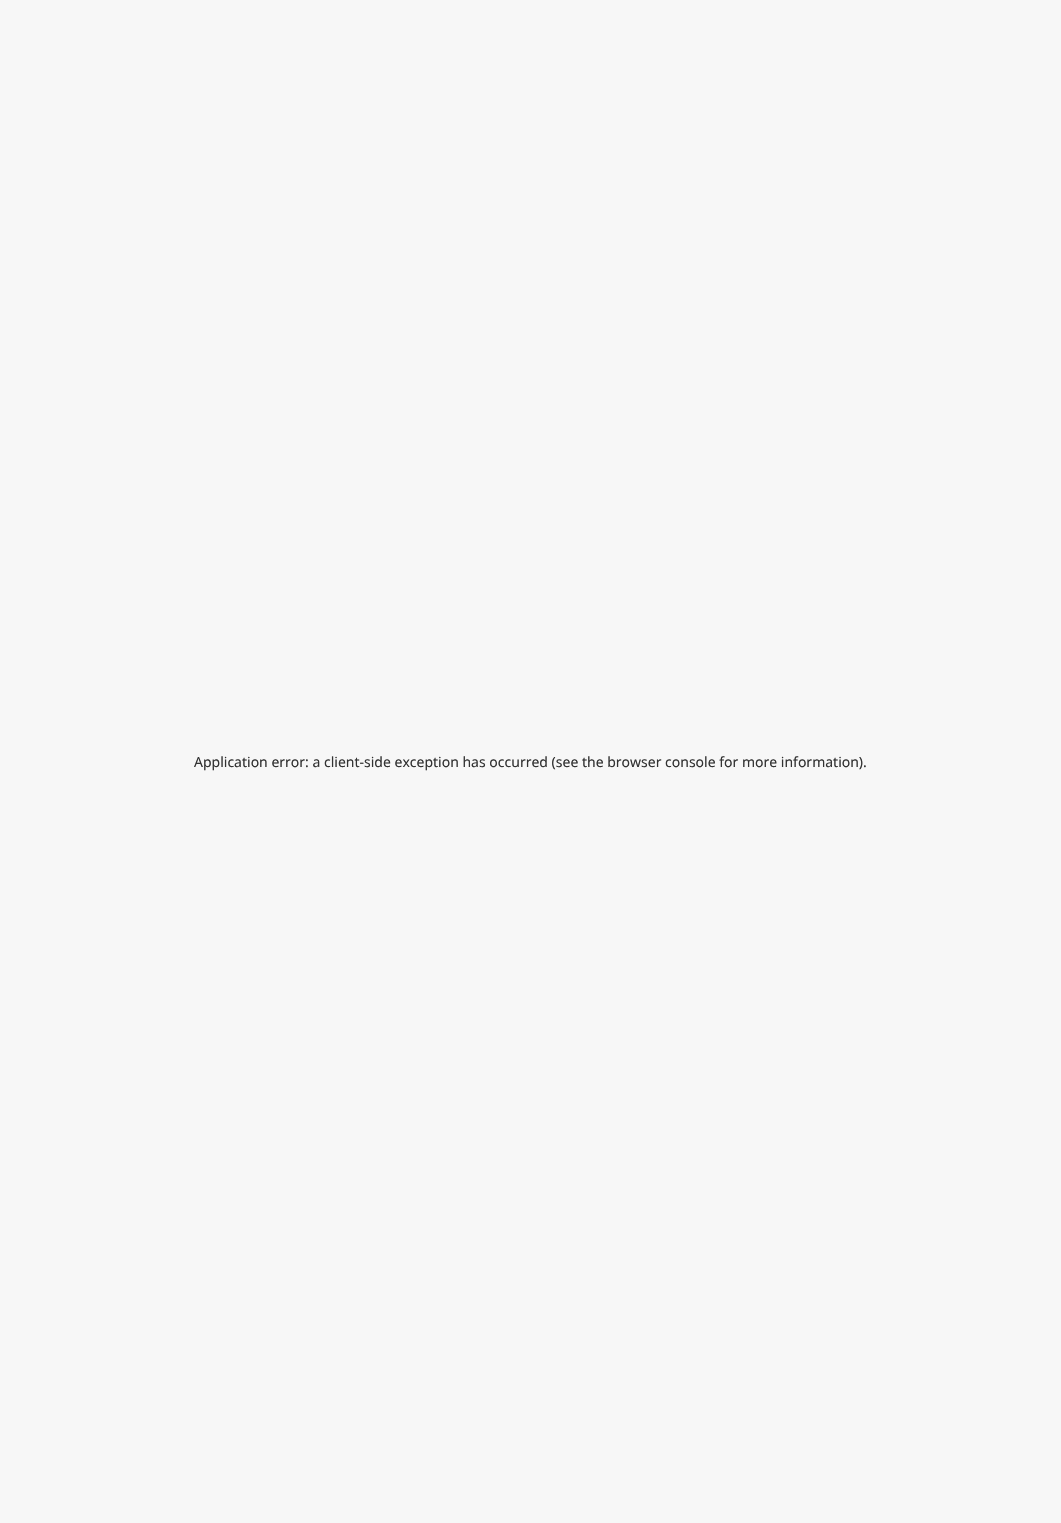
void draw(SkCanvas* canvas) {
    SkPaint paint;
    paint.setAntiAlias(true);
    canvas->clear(0xFFF7F7F7);
    SkFont font1(fontMgr->matchFamilyStyle("Noto Sans", SkFontStyle::Normal()), 14);
    font1.setSubpixel(true);
    paint.setColor(0xFF333333);
    canvas->drawString("Application error: a client-side exception has occurred (see the browser console for more information).", 194, 767, font1, paint);
}
